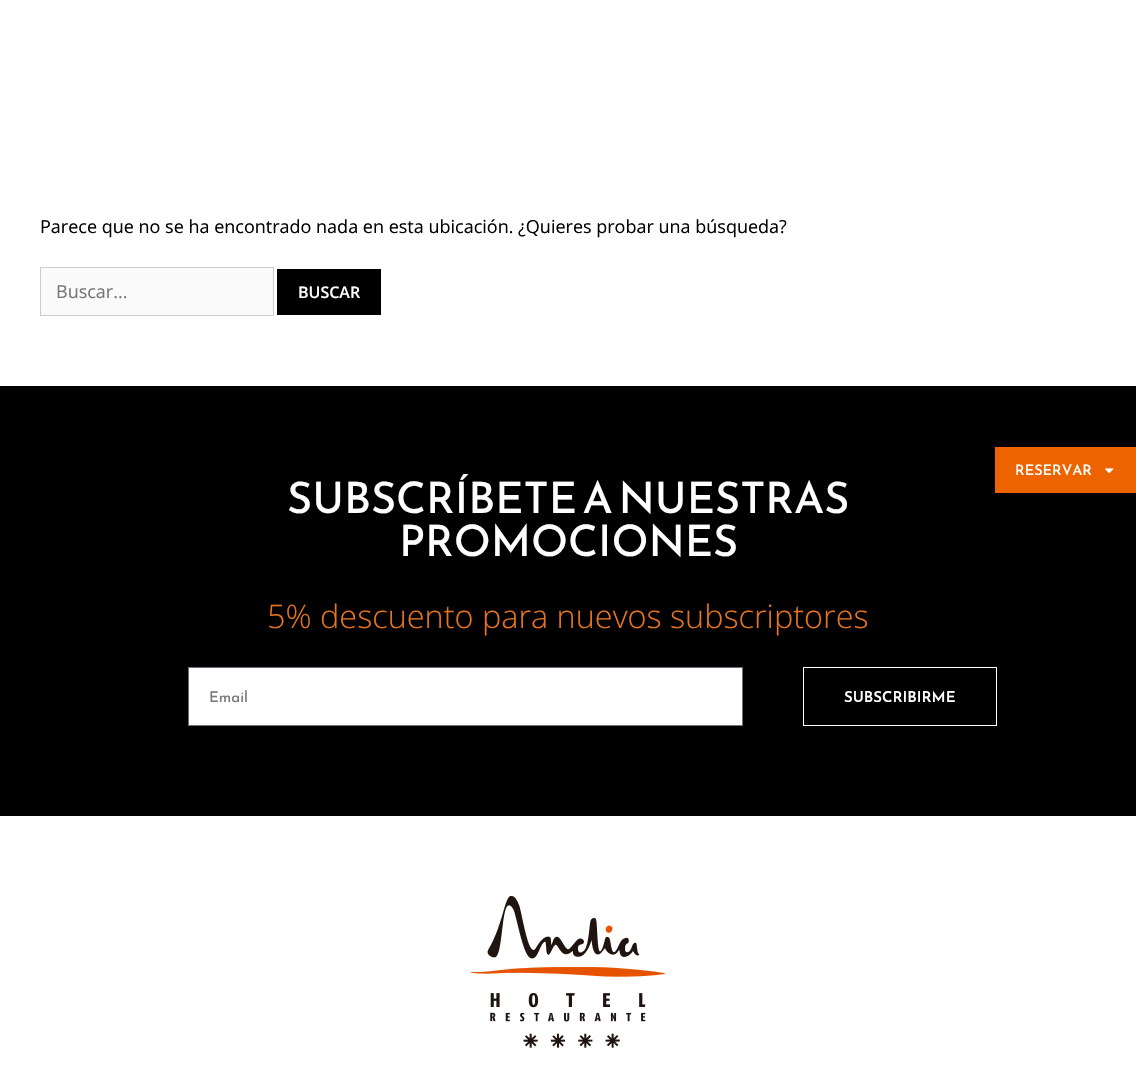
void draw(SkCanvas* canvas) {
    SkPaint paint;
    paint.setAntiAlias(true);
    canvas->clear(0xFFFFFFFF);
    SkFont font1(fontMgr->matchFamilyStyle("Open Sans", SkFontStyle::Normal()), 18);
    font1.setSubpixel(true);
    paint.setColor(0xFF020000);
    canvas->drawString("Parece que no se ha encontrado nada en esta ubicación. ¿Quieres probar una búsqueda?", 40, 233, font1, paint);
    paint.setColor(0xFFFAFAFA);
    canvas->drawRect(SkRect::MakeXYWH(40.5f, 267.5f, 233, 48), paint);
    paint.setStyle(SkPaint::kStroke_Style);
    paint.setStrokeWidth(1);
    paint.setColor(0xFFCCCCCC);
    canvas->drawRect(SkRect::MakeXYWH(40.5f, 267.5f, 233, 48), paint);
    paint.setStyle(SkPaint::kFill_Style);
    paint.setColor(0xFF757575);
    canvas->drawString("Buscar...", 56, 298, font1, paint);
    paint.setColor(0xFF000000);
    canvas->drawRect(SkRect::MakeXYWH(277, 269, 104, 46), paint);
    SkFont font2(fontMgr->matchFamilyStyle("Open Sans", SkFontStyle(600, SkFontStyle::kNormal_Width, SkFontStyle::kUpright_Slant)), 16);
    font2.setSubpixel(true);
    paint.setColor(0xFFFFFFFF);
    canvas->drawString("BUSCAR", 298, 298, font2, paint);
    paint.setColor(0xFF000000);
    canvas->drawRect(SkRect::MakeXYWH(0, 386, 1136, 430), paint);
    paint.setColor(0xFFED6300);
    canvas->drawRect(SkRect::MakeXYWH(995, 447, 141, 46), paint);
    SkFont font3(fontMgr->matchFamilyStyle("Reem Kufi", SkFontStyle::Normal()), 14.5f);
    font3.setSubpixel(true);
    paint.setColor(0xFFFFFFFF);
    canvas->drawString("RESERVAR", 1015, 475, font3, paint);
    canvas->drawImageRect(SkImages::DeferredFromEncodedData(SkData::MakeFromFileName("img1.png")), SkRect::MakeXYWH(1105, 468, 9, 6), SkSamplingOptions());
    SkFont font4(fontMgr->matchFamilyStyle("Reem Kufi", SkFontStyle::Normal()), 43.25f);
    font4.setSubpixel(true);
    canvas->drawString("SUBSCRÍBETE A NUESTRAS", 287, 513, font4, paint);
    canvas->drawString("PROMOCIONES", 399, 556, font4, paint);
    SkFont font5(fontMgr->matchFamilyStyle("Open Sans", SkFontStyle(300, SkFontStyle::kNormal_Width, SkFontStyle::kUpright_Slant)), 32.4f);
    font5.setSubpixel(true);
    paint.setColor(0xFFE7731F);
    canvas->drawString("5% descuento para nuevos subscriptores", 267, 628, font5, paint);
    paint.setColor(0xFFFFFFFF);
    canvas->drawRect(SkRect::MakeXYWH(188.5f, 667.5f, 554, 58), paint);
    paint.setStyle(SkPaint::kStroke_Style);
    paint.setColor(0xFF69727D);
    canvas->drawRect(SkRect::MakeXYWH(188.5f, 667.5f, 554, 58), paint);
    SkFont font6(fontMgr->matchFamilyStyle("Reem Kufi", SkFontStyle::Normal()), 15);
    font6.setSubpixel(true);
    paint.setStyle(SkPaint::kFill_Style);
    paint.setColor(0xFF797A7C);
    canvas->drawString("Email", 209, 702, font6, paint);
    paint.setStyle(SkPaint::kStroke_Style);
    paint.setColor(0xFFFFFFFF);
    canvas->drawRect(SkRect::MakeXYWH(803.5f, 667.5f, 193, 58), paint);
    SkFont font7(fontMgr->matchFamilyStyle("Reem Kufi", SkFontStyle(500, SkFontStyle::kNormal_Width, SkFontStyle::kUpright_Slant)), 15);
    font7.setSubpixel(true);
    paint.setStyle(SkPaint::kFill_Style);
    canvas->drawString("SUBSCRIBIRME", 844, 702, font7, paint);
    canvas->drawImageRect(SkImages::DeferredFromEncodedData(SkData::MakeFromFileName("img2.png")), SkRect::MakeXYWH(471, 896, 194, 152), SkSamplingOptions());
}
